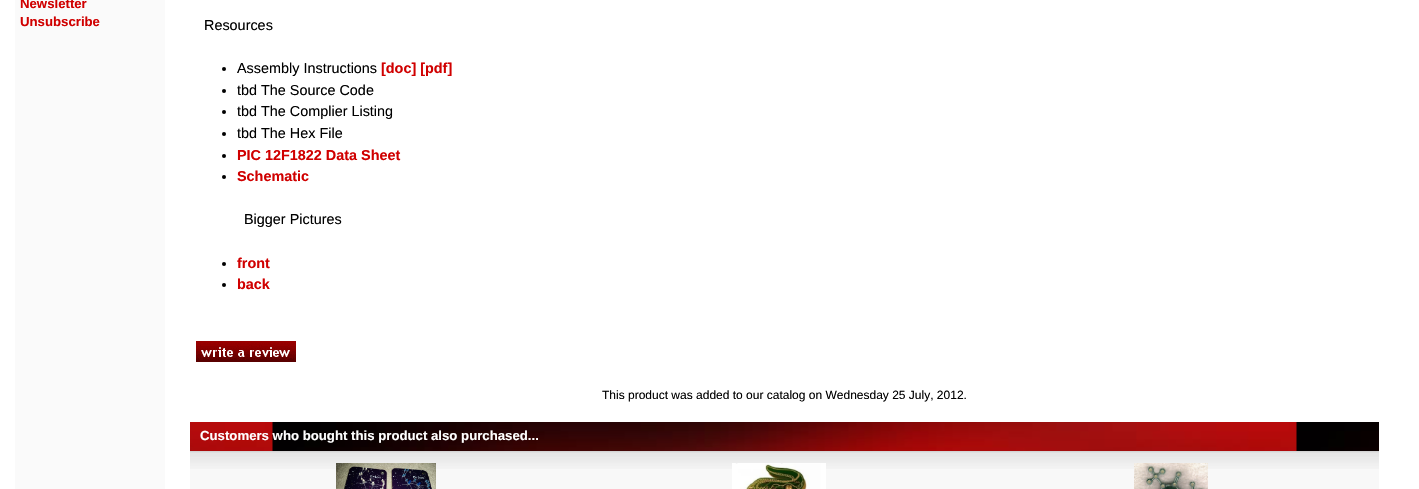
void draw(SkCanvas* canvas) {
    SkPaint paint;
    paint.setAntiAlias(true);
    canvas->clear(0xFFFFFFFF);
    paint.setColor(0xFFFAFAFA);
    canvas->drawRect(SkRect::MakeXYWH(15, 0, 150, 489), paint);
    SkFont font1(fontMgr->matchFamilyStyle("Liberation Sans", SkFontStyle::Bold()), 13.2f);
    font1.setSubpixel(true);
    paint.setColor(0xFFD00000);
    canvas->drawString("Newsletter", 20, 8, font1, paint);
    canvas->drawString("Unsubscribe", 20, 26, font1, paint);
    SkFont font2(fontMgr->matchFamilyStyle("Liberation Sans", SkFontStyle::Normal()), 14.4f);
    font2.setSubpixel(true);
    paint.setColor(0xFF000000);
    canvas->drawString("Resources", 204, 30, font2, paint);
    canvas->drawCircle(224, 69, 2, paint);
    canvas->drawString("Assembly Instructions", 237, 73, font2, paint);
    SkFont font3(fontMgr->matchFamilyStyle("Liberation Sans", SkFontStyle::Bold()), 14.4f);
    font3.setSubpixel(true);
    paint.setColor(0xFFD00000);
    canvas->drawString("[doc] [pdf]", 381, 73, font3, paint);
    paint.setColor(0xFF000000);
    canvas->drawCircle(224, 91, 2, paint);
    canvas->drawString("tbd The Source Code", 237, 95, font2, paint);
    canvas->drawCircle(224, 112, 2, paint);
    canvas->drawString("tbd The Complier Listing", 237, 116, font2, paint);
    canvas->drawCircle(224, 134, 2, paint);
    canvas->drawString("tbd The Hex File", 237, 138, font2, paint);
    canvas->drawCircle(224, 156, 2, paint);
    paint.setColor(0xFFD00000);
    canvas->drawString("PIC 12F1822 Data Sheet", 237, 160, font3, paint);
    paint.setColor(0xFF000000);
    canvas->drawCircle(224, 177, 2, paint);
    paint.setColor(0xFFD00000);
    canvas->drawString("Schematic", 237, 181, font3, paint);
    paint.setColor(0xFF000000);
    canvas->drawString("Bigger Pictures", 244, 224, font2, paint);
    canvas->drawCircle(224, 264, 2, paint);
    paint.setColor(0xFFD00000);
    canvas->drawString("front", 237, 268, font3, paint);
    paint.setColor(0xFF000000);
    canvas->drawCircle(224, 285, 2, paint);
    paint.setColor(0xFFD00000);
    canvas->drawString("back", 237, 289, font3, paint);
    canvas->drawImageRect(SkImages::DeferredFromEncodedData(SkData::MakeFromFileName("img1.png")), SkRect::MakeXYWH(196, 341, 100, 21), SkSamplingOptions());
    SkFont font4(fontMgr->matchFamilyStyle("Liberation Sans", SkFontStyle::Normal()), 12);
    font4.setSubpixel(true);
    paint.setColor(0xFF000000);
    canvas->drawString("This product was added to our catalog on Wednesday 25 July, 2012.", 602, 399, font4, paint);
    paint.setColor(0xFFF8F8F8);
    canvas->drawRect(SkRect::MakeXYWH(190, 469, 1189, 20), paint);
    canvas->drawImageRect(SkImages::DeferredFromEncodedData(SkData::MakeFromFileName("img2.png")), SkRect::MakeXYWH(190, 451, 1189, 18), SkSamplingOptions());
    canvas->drawImageRect(SkImages::DeferredFromEncodedData(SkData::MakeFromFileName("img3.png")), SkRect::MakeXYWH(190, 422, 1189, 29), SkSamplingOptions());
    paint.setColor(0xFFFFFFFF);
    canvas->drawString("Customers who bought this product also purchased...", 200, 440, font1, paint);
    canvas->drawImageRect(SkImages::DeferredFromEncodedData(SkData::MakeFromFileName("img4.png")), SkRect::MakeXYWH(336, 463, 100, 26), SkSamplingOptions());
    canvas->drawImageRect(SkImages::DeferredFromEncodedData(SkData::MakeFromFileName("img5.png")), SkRect::MakeXYWH(732, 463, 94, 26), SkSamplingOptions());
    canvas->drawImageRect(SkImages::DeferredFromEncodedData(SkData::MakeFromFileName("img6.png")), SkRect::MakeXYWH(1134, 463, 74, 26), SkSamplingOptions());
}
